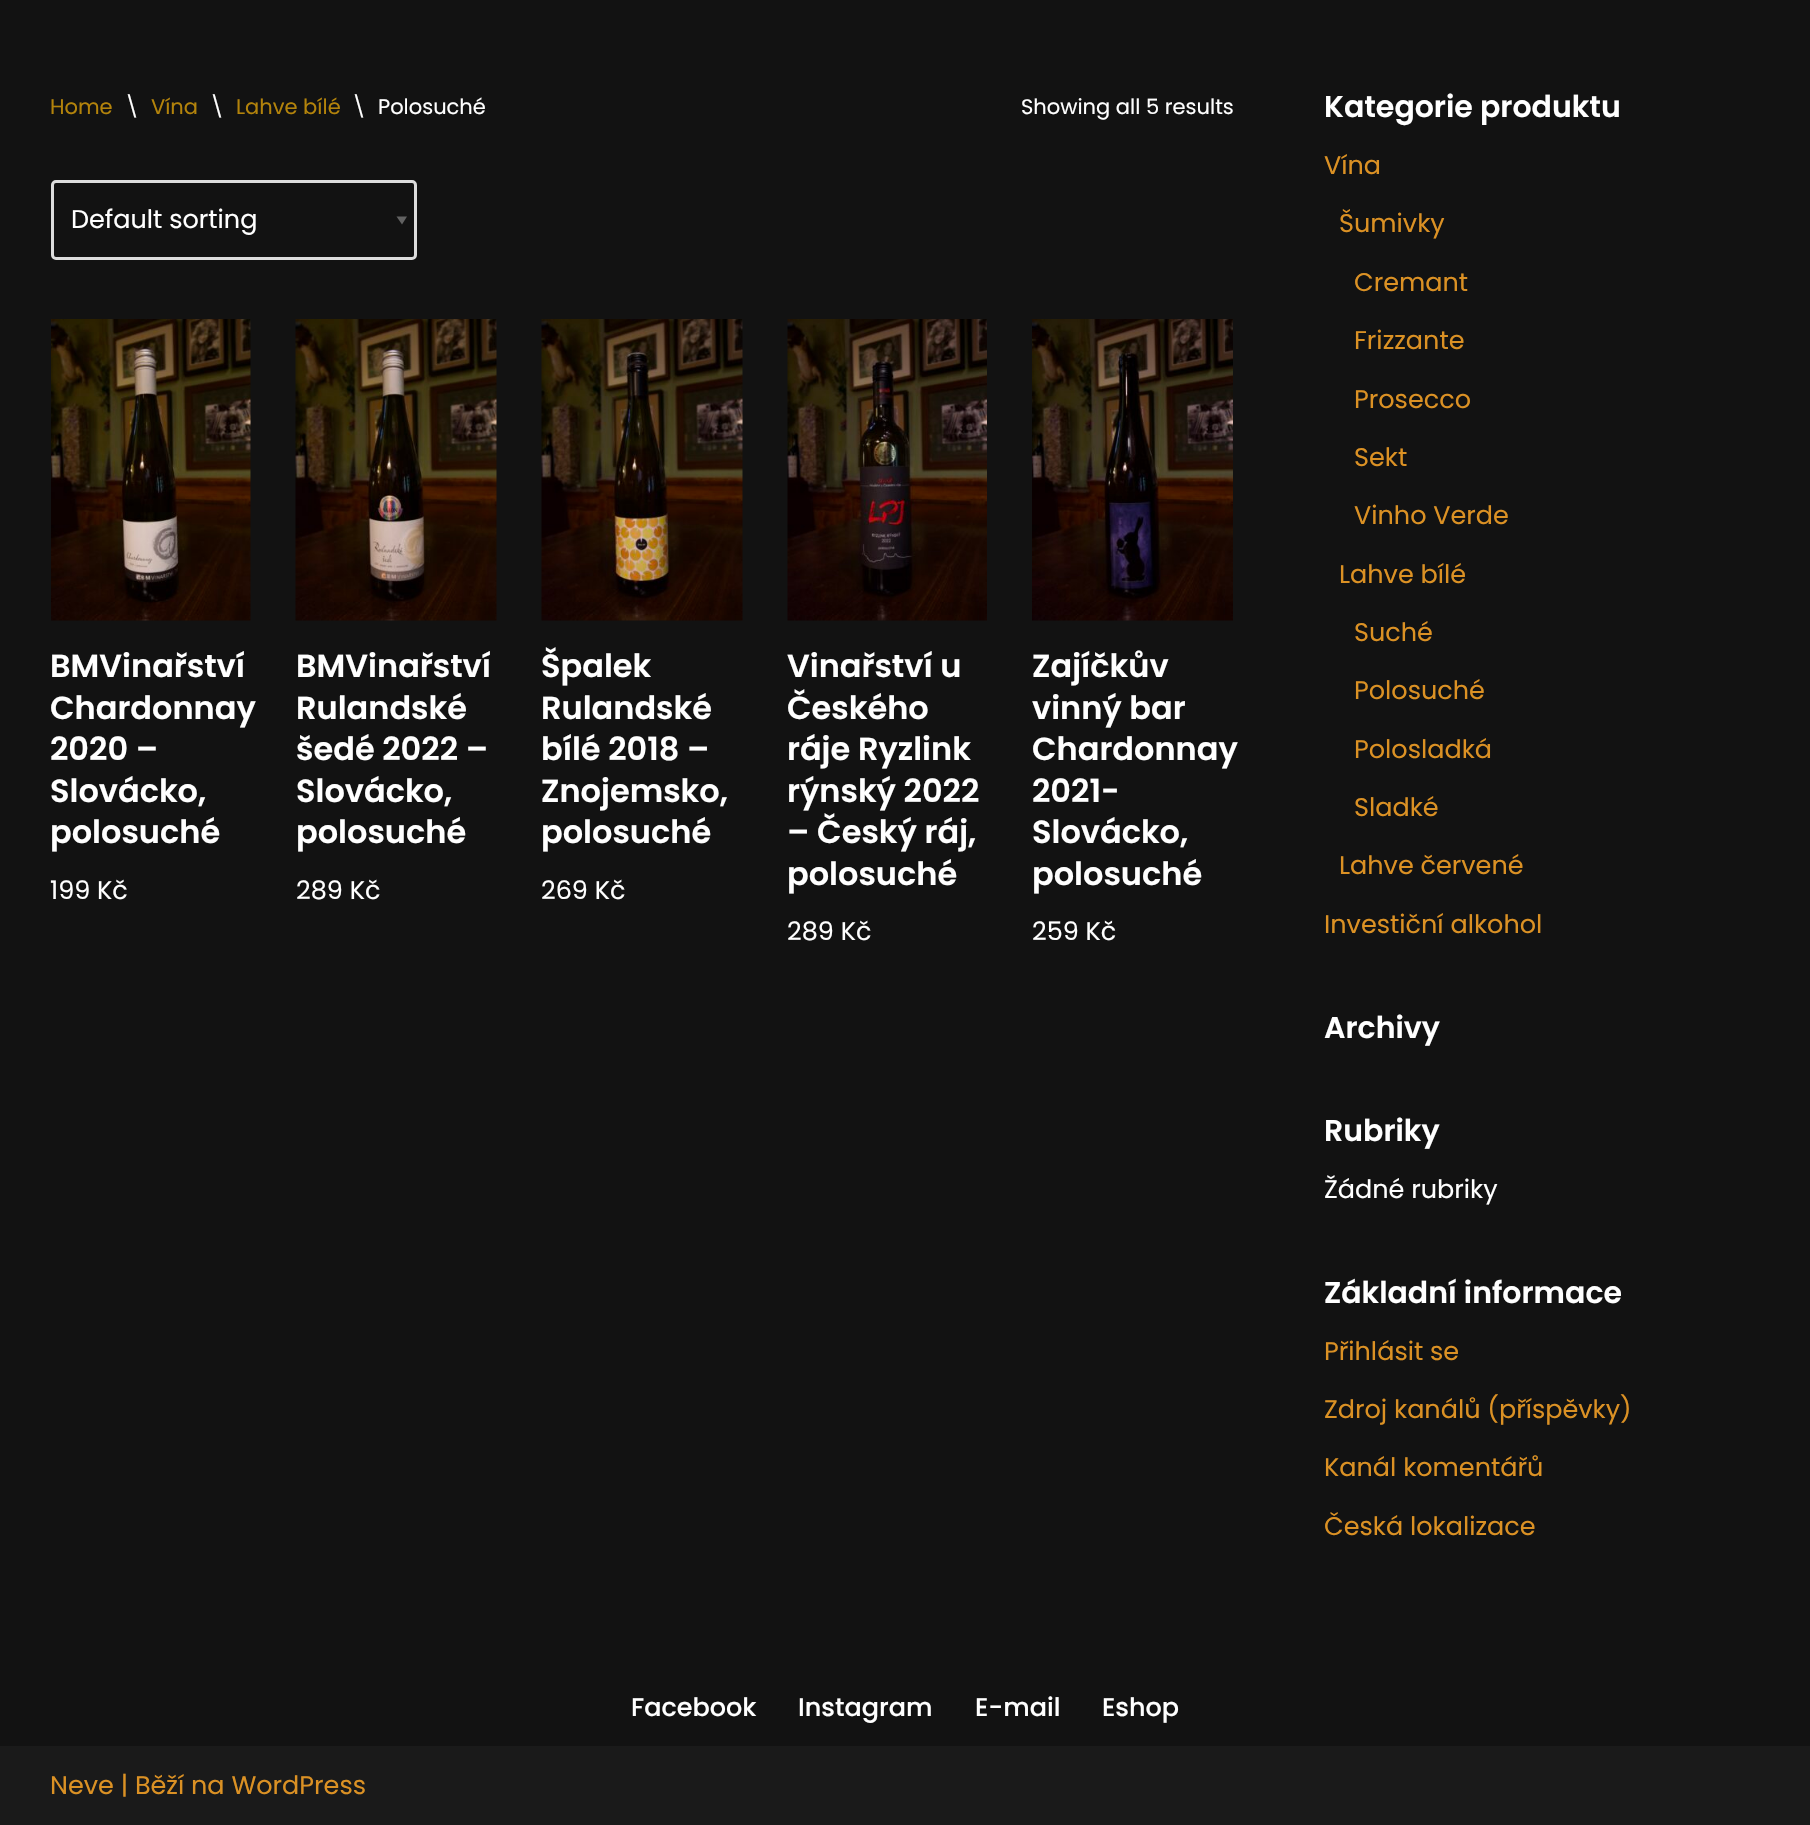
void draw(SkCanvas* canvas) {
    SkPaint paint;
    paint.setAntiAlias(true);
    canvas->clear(0xFF121212);
    SkFont font1(fontMgr->matchFamilyStyle("Poppins", SkFontStyle::Normal()), 21);
    font1.setSubpixel(true);
    paint.setColor(0xFFB3830B);
    canvas->drawString("Home", 50, 114, font1, paint);
    paint.setColor(0xFFFFFFFF);
    canvas->drawString("\\", 125, 114, font1, paint);
    paint.setColor(0xFFB3830B);
    canvas->drawString("Vína", 151, 114, font1, paint);
    paint.setColor(0xFFFFFFFF);
    canvas->drawString("\\", 210, 114, font1, paint);
    paint.setColor(0xFFB3830B);
    canvas->drawString("Lahve bílé", 236, 114, font1, paint);
    paint.setColor(0xFFFFFFFF);
    canvas->drawString("\\", 352, 114, font1, paint);
    canvas->drawString("Polosuché", 378, 114, font1, paint);
    canvas->drawString("Showing all 5 results", 1021, 114, font1, paint);
    paint.setColor(0xFF626262);
    canvas->drawPath(SkPathBuilder().moveTo(407, 216.5f).lineTo(402, 224.5f).lineTo(396.5f, 216.5f).close().detach(), paint);
    paint.setStyle(SkPaint::kStroke_Style);
    paint.setStrokeWidth(3);
    paint.setColor(0xFFDDDDDD);
    canvas->drawRoundRect(SkRect::MakeXYWH(52.5f, 181.5f, 363, 77), 3.5f, 3.5f, paint);
    SkFont font2(fontMgr->matchFamilyStyle("Poppins", SkFontStyle::Normal()), 25.5f);
    font2.setSubpixel(true);
    paint.setStyle(SkPaint::kFill_Style);
    paint.setColor(0xFFFFFFFF);
    canvas->drawString("Default sorting", 71, 228, font2, paint);
    canvas->drawImageRect(SkImages::DeferredFromEncodedData(SkData::MakeFromFileName("img1.png")), SkRect::MakeXYWH(51, 319, 200, 302), SkSamplingOptions());
    SkFont font3(fontMgr->matchFamilyStyle("Poppins", SkFontStyle(600, SkFontStyle::kNormal_Width, SkFontStyle::kUpright_Slant)), 32);
    font3.setSubpixel(true);
    canvas->drawString("BMVinařství", 50, 677, font3, paint);
    canvas->drawString("Chardonnay", 50, 719, font3, paint);
    canvas->drawString("2020 –", 50, 760, font3, paint);
    canvas->drawString("Slovácko,", 50, 802, font3, paint);
    canvas->drawString("polosuché", 50, 843, font3, paint);
    canvas->drawString("199 Kč", 50, 899, font2, paint);
    canvas->drawImageRect(SkImages::DeferredFromEncodedData(SkData::MakeFromFileName("img2.png")), SkRect::MakeXYWH(295, 319, 202, 302), SkSamplingOptions());
    canvas->drawString("BMVinařství", 296, 677, font3, paint);
    canvas->drawString("Rulandské", 296, 719, font3, paint);
    canvas->drawString("šedé 2022 –", 296, 760, font3, paint);
    canvas->drawString("Slovácko,", 296, 802, font3, paint);
    canvas->drawString("polosuché", 296, 843, font3, paint);
    canvas->drawString("289 Kč", 296, 899, font2, paint);
    canvas->drawImageRect(SkImages::DeferredFromEncodedData(SkData::MakeFromFileName("img3.png")), SkRect::MakeXYWH(541, 319, 202, 302), SkSamplingOptions());
    canvas->drawString("Špalek", 541, 677, font3, paint);
    canvas->drawString("Rulandské", 541, 719, font3, paint);
    canvas->drawString("bílé 2018 –", 541, 760, font3, paint);
    canvas->drawString("Znojemsko,", 541, 802, font3, paint);
    canvas->drawString("polosuché", 541, 843, font3, paint);
    canvas->drawString("269 Kč", 541, 899, font2, paint);
    canvas->drawImageRect(SkImages::DeferredFromEncodedData(SkData::MakeFromFileName("img4.png")), SkRect::MakeXYWH(787, 319, 200, 302), SkSamplingOptions());
    canvas->drawString("Vinařství u", 787, 677, font3, paint);
    canvas->drawString("Českého", 787, 719, font3, paint);
    canvas->drawString("ráje Ryzlink", 787, 760, font3, paint);
    canvas->drawString("rýnský 2022", 787, 802, font3, paint);
    canvas->drawString("– Český ráj,", 787, 843, font3, paint);
    canvas->drawString("polosuché", 787, 885, font3, paint);
    canvas->drawString("289 Kč", 787, 940, font2, paint);
    canvas->drawImageRect(SkImages::DeferredFromEncodedData(SkData::MakeFromFileName("img5.png")), SkRect::MakeXYWH(1032, 319, 201, 302), SkSamplingOptions());
    canvas->drawString("Zajíčkův", 1032, 677, font3, paint);
    canvas->drawString("vinný bar", 1032, 719, font3, paint);
    canvas->drawString("Chardonnay", 1032, 760, font3, paint);
    canvas->drawString("2021-", 1032, 802, font3, paint);
    canvas->drawString("Slovácko,", 1032, 843, font3, paint);
    canvas->drawString("polosuché", 1032, 885, font3, paint);
    canvas->drawString("259 Kč", 1032, 940, font2, paint);
    SkFont font4(fontMgr->matchFamilyStyle("Poppins", SkFontStyle(600, SkFontStyle::kNormal_Width, SkFontStyle::kUpright_Slant)), 30);
    font4.setSubpixel(true);
    canvas->drawString("Kategorie produktu", 1324, 117, font4, paint);
    paint.setColor(0xFFDB9124);
    canvas->drawString("Vína", 1324, 174, font2, paint);
    canvas->drawString("Šumivky", 1339, 232, font2, paint);
    canvas->drawString("Cremant", 1354, 291, font2, paint);
    canvas->drawString("Frizzante", 1354, 349, font2, paint);
    canvas->drawString("Prosecco", 1354, 408, font2, paint);
    canvas->drawString("Sekt", 1354, 466, font2, paint);
    canvas->drawString("Vinho Verde", 1354, 524, font2, paint);
    canvas->drawString("Lahve bílé", 1339, 583, font2, paint);
    canvas->drawString("Suché", 1354, 641, font2, paint);
    canvas->drawString("Polosuché", 1354, 699, font2, paint);
    canvas->drawString("Polosladká", 1354, 758, font2, paint);
    canvas->drawString("Sladké", 1354, 816, font2, paint);
    canvas->drawString("Lahve červené", 1339, 874, font2, paint);
    canvas->drawString("Investiční alkohol", 1324, 933, font2, paint);
    paint.setColor(0xFFFFFFFF);
    canvas->drawString("Archivy", 1324, 1038, font4, paint);
    canvas->drawString("Rubriky", 1324, 1141, font4, paint);
    canvas->drawString("Žádné rubriky", 1324, 1198, font2, paint);
    canvas->drawString("Základní informace", 1324, 1303, font4, paint);
    paint.setColor(0xFFDB9124);
    canvas->drawString("Přihlásit se", 1324, 1360, font2, paint);
    canvas->drawString("Zdroj kanálů (příspěvky)", 1324, 1418, font2, paint);
    canvas->drawString("Kanál komentářů", 1324, 1476, font2, paint);
    canvas->drawString("Česká lokalizace", 1324, 1535, font2, paint);
    SkFont font5(fontMgr->matchFamilyStyle("Poppins", SkFontStyle(500, SkFontStyle::kNormal_Width, SkFontStyle::kUpright_Slant)), 25.5f);
    font5.setSubpixel(true);
    paint.setColor(0xFFFFFFFF);
    canvas->drawString("Facebook", 631, 1716, font5, paint);
    canvas->drawString("Instagram", 798, 1716, font5, paint);
    canvas->drawString("E-mail", 975, 1716, font5, paint);
    canvas->drawString("Eshop", 1102, 1716, font5, paint);
    paint.setColor(0xFF1A1A1A);
    canvas->drawRect(SkRect::MakeXYWH(0, 1746, 1810, 79), paint);
    paint.setColor(0xFFDB9124);
    canvas->drawString("Neve | Běží na WordPress", 50, 1794, font2, paint);
}
